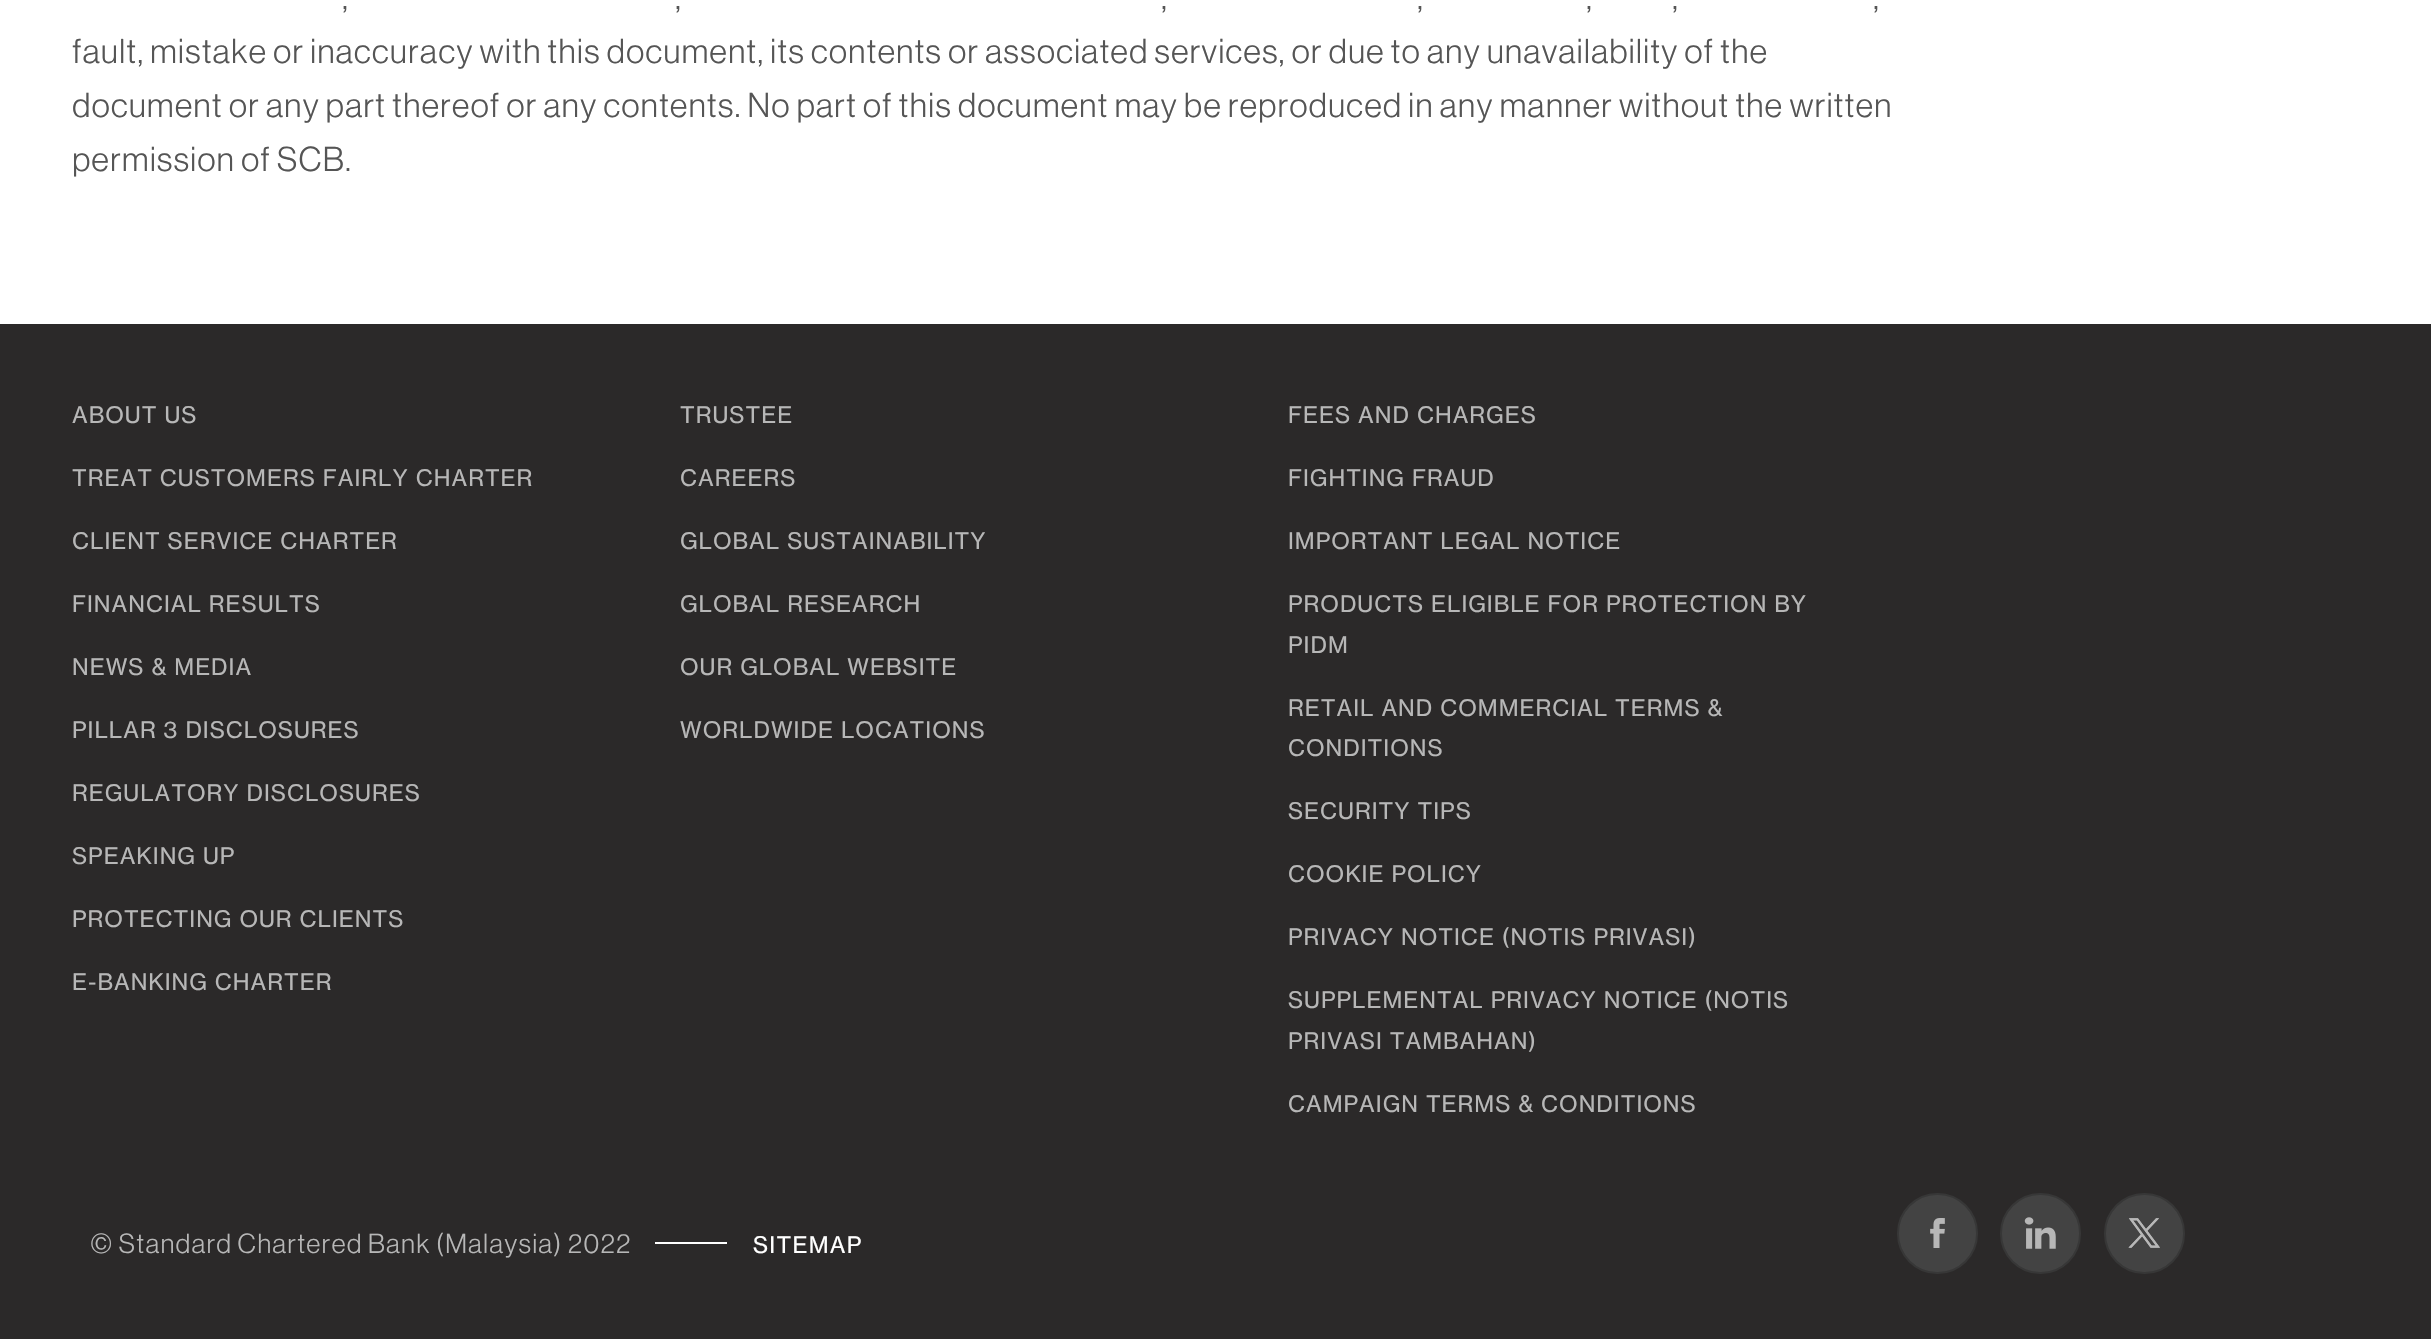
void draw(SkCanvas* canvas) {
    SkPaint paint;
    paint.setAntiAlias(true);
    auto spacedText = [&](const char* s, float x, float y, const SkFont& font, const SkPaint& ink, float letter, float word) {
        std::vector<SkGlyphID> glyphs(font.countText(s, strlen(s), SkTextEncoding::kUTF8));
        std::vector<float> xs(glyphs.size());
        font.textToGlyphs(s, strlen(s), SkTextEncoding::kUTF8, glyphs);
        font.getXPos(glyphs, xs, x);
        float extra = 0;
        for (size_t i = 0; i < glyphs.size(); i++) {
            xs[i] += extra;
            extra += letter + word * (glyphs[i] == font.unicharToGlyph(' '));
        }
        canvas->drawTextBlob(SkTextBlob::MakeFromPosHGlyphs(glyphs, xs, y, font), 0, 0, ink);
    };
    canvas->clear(0xFFFFFFFF);
    SkFont font1(fontMgr->matchFamilyStyle("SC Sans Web", SkFontStyle(300, SkFontStyle::kNormal_Width, SkFontStyle::kUpright_Slant)), 33.75f);
    font1.setSubpixel(true);
    paint.setColor(0xFF555555);
    spacedText(",", 342, 9, font1, paint, 0.9f, 0);
    spacedText(",", 675, 9, font1, paint, 0.9f, 0);
    spacedText(",", 1161, 9, font1, paint, 0.9f, 0);
    spacedText(",", 1417, 9, font1, paint, 0.9f, 0);
    spacedText(",", 1586, 9, font1, paint, 0.9f, 0);
    spacedText(",", 1672, 9, font1, paint, 0.9f, 0);
    spacedText(",", 1873, 9, font1, paint, 0.9f, 0);
    spacedText("fault, mistake or inaccuracy with this document, its contents or associated services, or due to any unavailability of the", 72, 63, font1, paint, 0.9f, 0);
    spacedText("document or any part thereof or any contents. No part of this document may be reproduced in any manner without the written", 72, 117, font1, paint, 0.9f, 0);
    spacedText("permission of SCB.", 72, 171, font1, paint, 0.9f, 0);
    paint.setColor(0xFF2B2929);
    canvas->drawRect(SkRect::MakeXYWH(0, 324, 2431, 1015), paint);
    SkFont font2(fontMgr->matchFamilyStyle("SC Sans Web", SkFontStyle::Normal()), 22.5f);
    font2.setSubpixel(true);
    paint.setColor(0xFFB7B7B7);
    spacedText("ABOUT US", 72, 423, font2, paint, 1, 0);
    spacedText("TREAT CUSTOMERS FAIRLY CHARTER", 72, 486, font2, paint, 1, 0);
    spacedText("CLIENT SERVICE CHARTER", 72, 549, font2, paint, 1, 0);
    spacedText("FINANCIAL RESULTS", 72, 612, font2, paint, 1, 0);
    spacedText("NEWS & MEDIA", 72, 675, font2, paint, 1, 0);
    spacedText("PILLAR 3 DISCLOSURES", 72, 738, font2, paint, 1, 0);
    spacedText("REGULATORY DISCLOSURES", 72, 801, font2, paint, 1, 0);
    spacedText("SPEAKING UP", 72, 864, font2, paint, 1, 0);
    spacedText("PROTECTING OUR CLIENTS", 72, 927, font2, paint, 1, 0);
    spacedText("E-BANKING CHARTER", 72, 990, font2, paint, 1, 0);
    spacedText("TRUSTEE", 680, 423, font2, paint, 1, 0);
    spacedText("CAREERS", 680, 486, font2, paint, 1, 0);
    spacedText("GLOBAL SUSTAINABILITY", 680, 549, font2, paint, 1, 0);
    spacedText("GLOBAL RESEARCH", 680, 612, font2, paint, 1, 0);
    spacedText("OUR GLOBAL WEBSITE", 680, 675, font2, paint, 1, 0);
    spacedText("WORLDWIDE LOCATIONS", 680, 738, font2, paint, 1, 0);
    spacedText("FEES AND CHARGES", 1288, 423, font2, paint, 1, 0);
    spacedText("FIGHTING FRAUD", 1288, 486, font2, paint, 1, 0);
    spacedText("IMPORTANT LEGAL NOTICE", 1288, 549, font2, paint, 1, 0);
    spacedText("PRODUCTS ELIGIBLE FOR PROTECTION BY", 1288, 612, font2, paint, 1, 0);
    spacedText("PIDM", 1288, 653, font2, paint, 1, 0);
    spacedText("RETAIL AND COMMERCIAL TERMS &", 1288, 716, font2, paint, 1, 0);
    spacedText("CONDITIONS", 1288, 756, font2, paint, 1, 0);
    spacedText("SECURITY TIPS", 1288, 819, font2, paint, 1, 0);
    spacedText("COOKIE POLICY", 1288, 882, font2, paint, 1, 0);
    spacedText("PRIVACY NOTICE (NOTIS PRIVASI)", 1288, 945, font2, paint, 1, 0);
    spacedText("SUPPLEMENTAL PRIVACY NOTICE (NOTIS", 1288, 1008, font2, paint, 1, 0);
    spacedText("PRIVASI TAMBAHAN)", 1288, 1049, font2, paint, 1, 0);
    spacedText("CAMPAIGN TERMS & CONDITIONS", 1288, 1112, font2, paint, 1, 0);
    SkFont font3(fontMgr->matchFamilyStyle("SC Sans Web", SkFontStyle(300, SkFontStyle::kNormal_Width, SkFontStyle::kUpright_Slant)), 27);
    font3.setSubpixel(true);
    spacedText("© Standard Chartered Bank (Malaysia) 2022", 90, 1253, font3, paint, 1.1f, 0);
    paint.setColor(0xFFFFFFFF);
    canvas->drawRect(SkRect::MakeXYWH(655, 1242, 72, 2), paint);
    spacedText("SITEMAP", 753, 1253, font2, paint, 1.25f, 0);
    paint.setColor(0xFF434343);
    canvas->drawCircle(1937.5f, 1233.5f, 39.5f, paint);
    paint.setStyle(SkPaint::kStroke_Style);
    paint.setStrokeWidth(2);
    paint.setColor(0xFF373737);
    canvas->drawCircle(1937.5f, 1233.5f, 39.5f, paint);
    canvas->drawImageRect(SkImages::DeferredFromEncodedData(SkData::MakeFromFileName("img1.png")), SkRect::MakeXYWH(1930, 1218, 15, 30), SkSamplingOptions());
    paint.setStyle(SkPaint::kFill_Style);
    paint.setColor(0xFF434343);
    canvas->drawCircle(2040.5f, 1233.5f, 39.5f, paint);
    paint.setStyle(SkPaint::kStroke_Style);
    paint.setColor(0xFF373737);
    canvas->drawCircle(2040.5f, 1233.5f, 39.5f, paint);
    canvas->drawImageRect(SkImages::DeferredFromEncodedData(SkData::MakeFromFileName("img2.png")), SkRect::MakeXYWH(2024, 1217, 32, 32), SkSamplingOptions());
    paint.setStyle(SkPaint::kFill_Style);
    paint.setColor(0xFF434343);
    canvas->drawCircle(2144.5f, 1233.5f, 39.5f, paint);
    paint.setStyle(SkPaint::kStroke_Style);
    paint.setColor(0xFF373737);
    canvas->drawCircle(2144.5f, 1233.5f, 39.5f, paint);
    canvas->drawImageRect(SkImages::DeferredFromEncodedData(SkData::MakeFromFileName("img3.png")), SkRect::MakeXYWH(2128, 1218, 32, 30), SkSamplingOptions());
}
